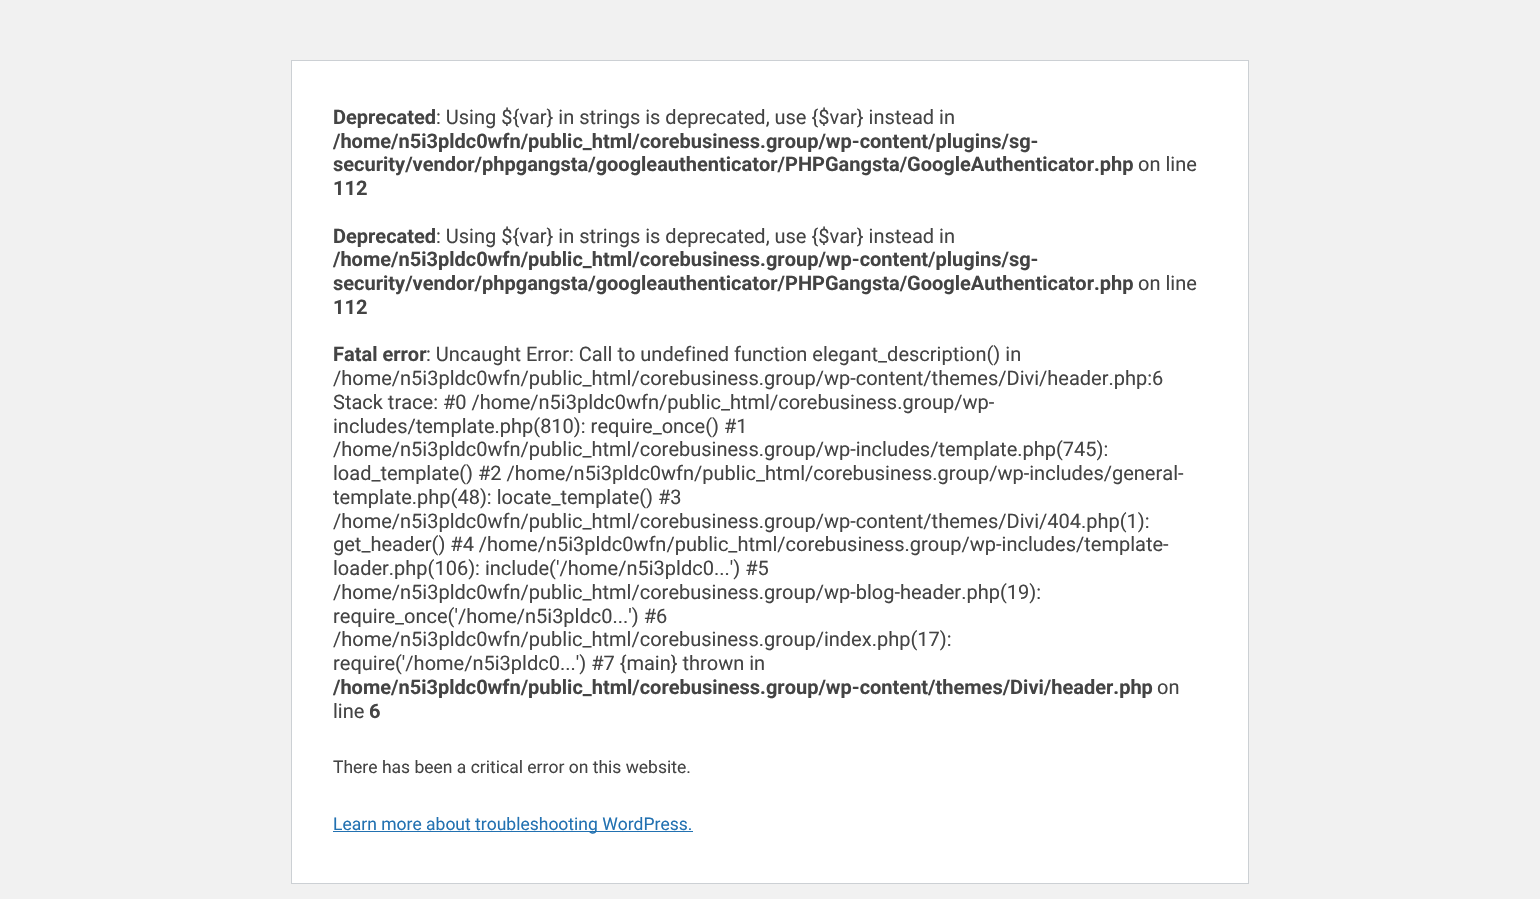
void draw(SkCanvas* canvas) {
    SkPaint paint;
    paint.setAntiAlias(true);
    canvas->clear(0xFFF1F1F1);
    paint.setColor(0xFFFFFFFF);
    canvas->drawRect(SkRect::MakeXYWH(291.5f, 60.5f, 957, 823), paint);
    paint.setStyle(SkPaint::kStroke_Style);
    paint.setStrokeWidth(1);
    paint.setColor(0xFFCCD0D4);
    canvas->drawRect(SkRect::MakeXYWH(291.5f, 60.5f, 957, 823), paint);
    SkFont font1(fontMgr->matchFamilyStyle("Roboto", SkFontStyle::Bold()), 20);
    font1.setSubpixel(true);
    paint.setStyle(SkPaint::kFill_Style);
    paint.setColor(0xFF444444);
    canvas->drawString("Deprecated", 333, 124, font1, paint);
    SkFont font2(fontMgr->matchFamilyStyle("Roboto", SkFontStyle::Normal()), 20);
    font2.setSubpixel(true);
    canvas->drawString(": Using ${var} in strings is deprecated, use {$var} instead in", 436, 124, font2, paint);
    canvas->drawString("/home/n5i3pldc0wfn/public_html/corebusiness.group/wp-content/plugins/sg-", 333, 148, font1, paint);
    canvas->drawString("security/vendor/phpgangsta/googleauthenticator/PHPGangsta/GoogleAuthenticator.php", 333, 171, font1, paint);
    canvas->drawString("on line", 1138, 171, font2, paint);
    canvas->drawString("112", 333, 195, font1, paint);
    canvas->drawString("Deprecated", 333, 243, font1, paint);
    canvas->drawString(": Using ${var} in strings is deprecated, use {$var} instead in", 436, 243, font2, paint);
    canvas->drawString("/home/n5i3pldc0wfn/public_html/corebusiness.group/wp-content/plugins/sg-", 333, 266, font1, paint);
    canvas->drawString("security/vendor/phpgangsta/googleauthenticator/PHPGangsta/GoogleAuthenticator.php", 333, 290, font1, paint);
    canvas->drawString("on line", 1138, 290, font2, paint);
    canvas->drawString("112", 333, 314, font1, paint);
    canvas->drawString("Fatal error", 333, 361, font1, paint);
    canvas->drawString(": Uncaught Error: Call to undefined function elegant_description() in", 426, 361, font2, paint);
    canvas->drawString("/home/n5i3pldc0wfn/public_html/corebusiness.group/wp-content/themes/Divi/header.php:6", 333, 385, font2, paint);
    canvas->drawString("Stack trace: #0 /home/n5i3pldc0wfn/public_html/corebusiness.group/wp-", 333, 409, font2, paint);
    canvas->drawString("includes/template.php(810): require_once() #1", 333, 433, font2, paint);
    canvas->drawString("/home/n5i3pldc0wfn/public_html/corebusiness.group/wp-includes/template.php(745):", 333, 456, font2, paint);
    canvas->drawString("load_template() #2 /home/n5i3pldc0wfn/public_html/corebusiness.group/wp-includes/general-", 333, 480, font2, paint);
    canvas->drawString("template.php(48): locate_template() #3", 333, 504, font2, paint);
    canvas->drawString("/home/n5i3pldc0wfn/public_html/corebusiness.group/wp-content/themes/Divi/404.php(1):", 333, 528, font2, paint);
    canvas->drawString("get_header() #4 /home/n5i3pldc0wfn/public_html/corebusiness.group/wp-includes/template-", 333, 551, font2, paint);
    canvas->drawString("loader.php(106): include('/home/n5i3pldc0...') #5", 333, 575, font2, paint);
    canvas->drawString("/home/n5i3pldc0wfn/public_html/corebusiness.group/wp-blog-header.php(19):", 333, 599, font2, paint);
    canvas->drawString("require_once('/home/n5i3pldc0...') #6", 333, 623, font2, paint);
    canvas->drawString("/home/n5i3pldc0wfn/public_html/corebusiness.group/index.php(17):", 333, 646, font2, paint);
    canvas->drawString("require('/home/n5i3pldc0...') #7 {main} thrown in", 333, 670, font2, paint);
    canvas->drawString("/home/n5i3pldc0wfn/public_html/corebusiness.group/wp-content/themes/Divi/header.php", 333, 694, font1, paint);
    canvas->drawString("on", 1157, 694, font2, paint);
    canvas->drawString("line", 333, 718, font2, paint);
    canvas->drawString("6", 369, 718, font1, paint);
    SkFont font3(fontMgr->matchFamilyStyle("Roboto", SkFontStyle::Normal()), 17.5f);
    font3.setSubpixel(true);
    canvas->drawString("There has been a critical error on this website.", 333, 773, font3, paint);
    paint.setColor(0xFF2271B1);
    canvas->drawRect(SkRect::MakeXYWH(333, 831, 360, 1), paint);
    canvas->drawString("Learn more about troubleshooting WordPress.", 333, 830, font3, paint);
}
